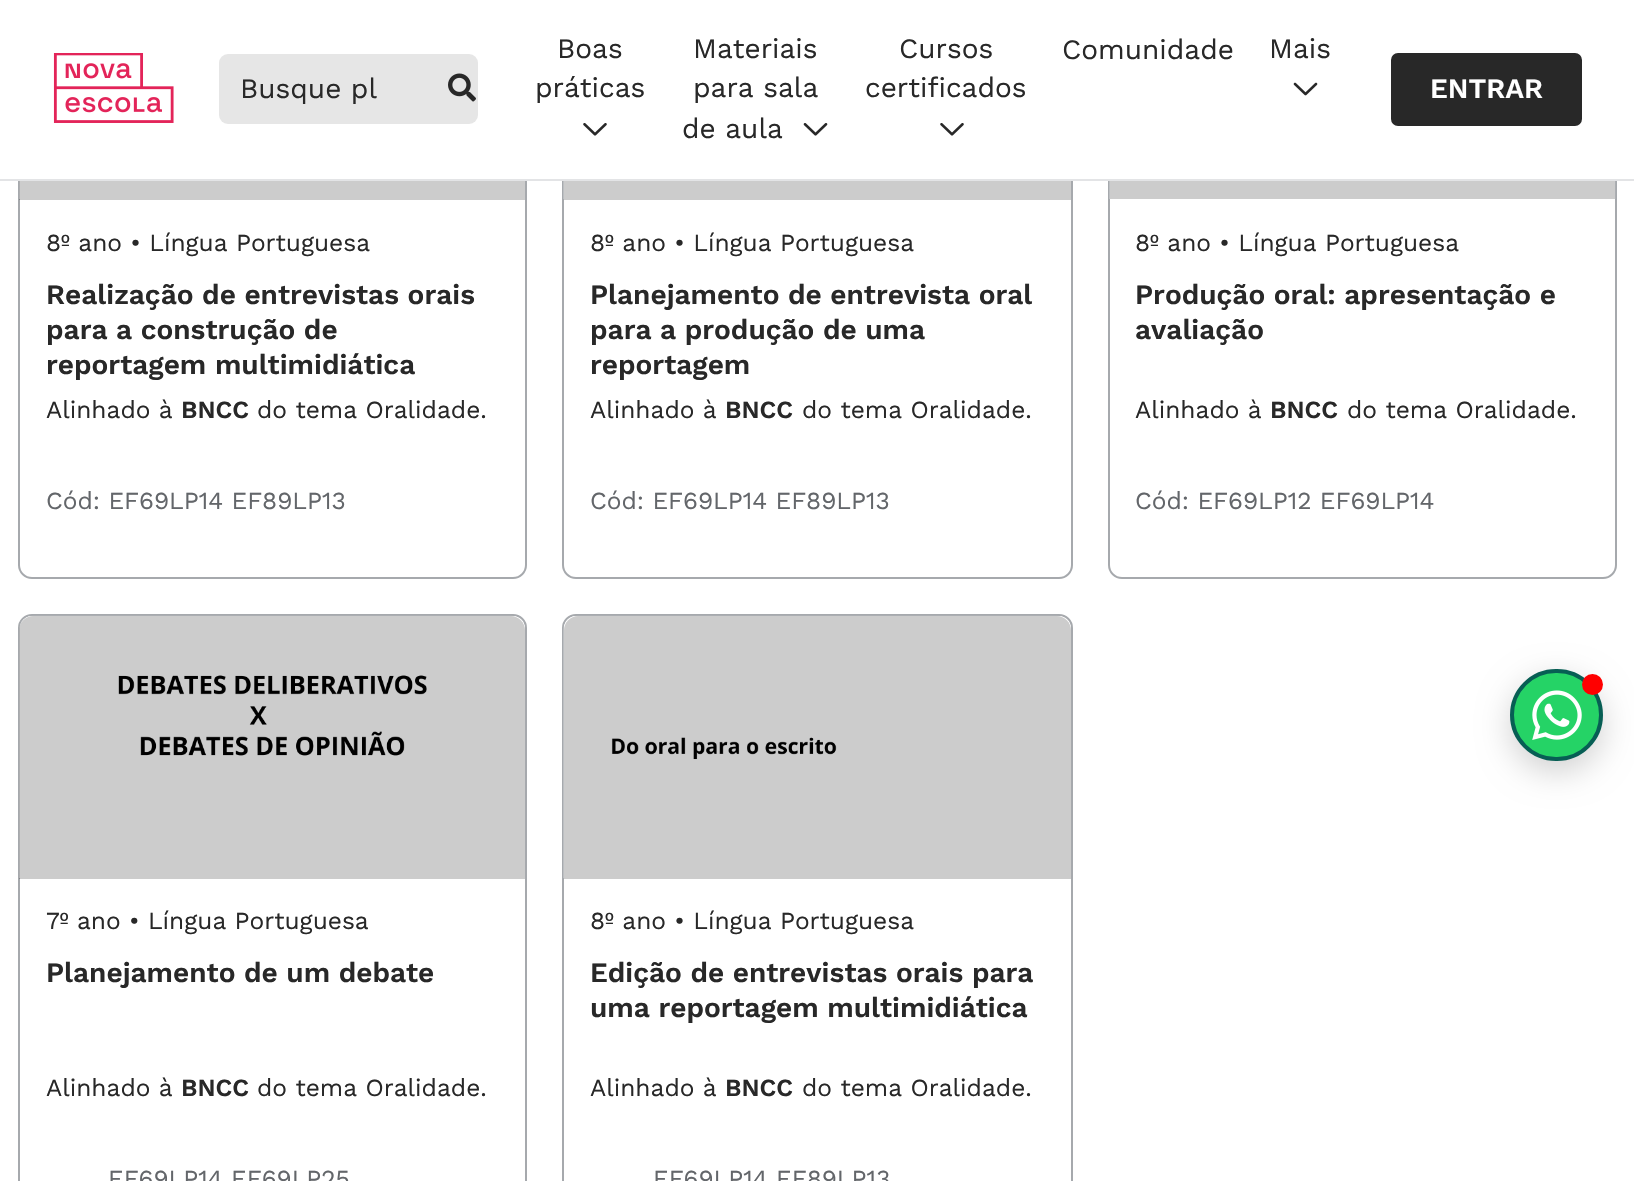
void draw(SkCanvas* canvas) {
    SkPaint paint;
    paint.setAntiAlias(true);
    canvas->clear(0xFFFFFFFF);
    paint.setColor(0xFFCCCCCC);
    canvas->drawRect(SkRect::MakeXYWH(564, 181, 507, 19), paint);
    paint.setStyle(SkPaint::kStroke_Style);
    paint.setStrokeWidth(2);
    paint.setColor(0xFFA6A9AD);
    canvas->drawRoundRect(SkRect::MakeXYWH(19, -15, 507, 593), 13, 13, paint);
    canvas->drawRoundRect(SkRect::MakeXYWH(563, -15, 509, 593), 13, 13, paint);
    canvas->drawRoundRect(SkRect::MakeXYWH(1109, -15, 507, 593), 13, 13, paint);
    paint.setStyle(SkPaint::kFill_Style);
    paint.setColor(0xFFFFFFFF);
    canvas->drawRect(SkRect::MakeXYWH(18, 0, 1599, 179), paint);
    paint.setColor(0xFFE3E4E6);
    canvas->drawRect(SkRect::MakeXYWH(0, 179, 1634, 2), paint);
    canvas->drawImageRect(SkImages::DeferredFromEncodedData(SkData::MakeFromFileName("img1.png")), SkRect::MakeXYWH(53, 53, 121, 70), SkSamplingOptions());
    paint.setColor(0xFFE6E6E6);
    canvas->drawRoundRect(SkRect::MakeXYWH(219, 54, 259, 70), 9, 9, paint);
    SkFont font1(fontMgr->matchFamilyStyle("Work Sans", SkFontStyle::Normal()), 28);
    font1.setSubpixel(true);
    paint.setColor(0xFF282828);
    canvas->drawString("Busque pl", 240, 98, font1, paint);
    canvas->drawImageRect(SkImages::DeferredFromEncodedData(SkData::MakeFromFileName("img2.png")), SkRect::MakeXYWH(448, 73, 28, 29), SkSamplingOptions());
    canvas->drawString("Boas", 557, 58, font1, paint);
    canvas->drawString("práticas", 535, 97, font1, paint);
    canvas->drawImageRect(SkImages::DeferredFromEncodedData(SkData::MakeFromFileName("img3.png")), SkRect::MakeXYWH(583, 123, 24, 13), SkSamplingOptions());
    canvas->drawString("Materiais", 693, 58, font1, paint);
    canvas->drawString("para sala", 693, 97, font1, paint);
    canvas->drawString("de aula", 682, 138, font1, paint);
    canvas->drawImageRect(SkImages::DeferredFromEncodedData(SkData::MakeFromFileName("img4.png")), SkRect::MakeXYWH(803, 123, 25, 13), SkSamplingOptions());
    canvas->drawString("Cursos", 899, 58, font1, paint);
    canvas->drawString("certificados", 865, 97, font1, paint);
    canvas->drawImageRect(SkImages::DeferredFromEncodedData(SkData::MakeFromFileName("img3.png")), SkRect::MakeXYWH(940, 123, 24, 13), SkSamplingOptions());
    canvas->drawString("Comunidade", 1062, 59, font1, paint);
    canvas->drawString("Mais", 1269, 58, font1, paint);
    canvas->drawImageRect(SkImages::DeferredFromEncodedData(SkData::MakeFromFileName("img5.png")), SkRect::MakeXYWH(1293, 82, 25, 14), SkSamplingOptions());
    canvas->drawRoundRect(SkRect::MakeXYWH(1393, 55, 187, 69), 5, 5, paint);
    paint.setStyle(SkPaint::kStroke_Style);
    paint.setStrokeWidth(4);
    canvas->drawRoundRect(SkRect::MakeXYWH(1393, 55, 187, 69), 5, 5, paint);
    SkFont font2(fontMgr->matchFamilyStyle("Work Sans", SkFontStyle(600, SkFontStyle::kNormal_Width, SkFontStyle::kUpright_Slant)), 28);
    font2.setSubpixel(true);
    paint.setStyle(SkPaint::kFill_Style);
    paint.setColor(0xFFFFFFFF);
    canvas->drawString("ENTRAR", 1430, 98, font2, paint);
    canvas->drawImageRect(SkImages::DeferredFromEncodedData(SkData::MakeFromFileName("img6.png")), SkRect::MakeXYWH(19, 181, 364, 18), SkSamplingOptions());
    paint.setColor(0x33000000);
    canvas->drawRect(SkRect::MakeXYWH(19, 181, 506, 19), paint);
    SkFont font3(fontMgr->matchFamilyStyle("Work Sans", SkFontStyle::Normal()), 24.5f);
    font3.setSubpixel(true);
    paint.setColor(0xFF282828);
    canvas->drawString("8º ano • Língua Portuguesa", 46, 251, font3, paint);
    canvas->drawString("Realização de entrevistas orais", 46, 304, font2, paint);
    canvas->drawString("para a construção de", 46, 339, font2, paint);
    canvas->drawString("reportagem multimidiática", 46, 374, font2, paint);
    canvas->drawString("Alinhado à", 46, 418, font3, paint);
    SkFont font4(fontMgr->matchFamilyStyle("Work Sans", SkFontStyle(600, SkFontStyle::kNormal_Width, SkFontStyle::kUpright_Slant)), 24.5f);
    font4.setSubpixel(true);
    canvas->drawString("BNCC", 181, 418, font4, paint);
    canvas->drawString("do tema Oralidade.", 257, 418, font3, paint);
    paint.setColor(0xFF63666A);
    canvas->drawString("Cód: EF69LP14 EF89LP13", 46, 509, font3, paint);
    canvas->drawImageRect(SkImages::DeferredFromEncodedData(SkData::MakeFromFileName("img7.png")), SkRect::MakeXYWH(563, 181, 393, 18), SkSamplingOptions());
    paint.setColor(0xFF282828);
    canvas->drawString("8º ano • Língua Portuguesa", 590, 251, font3, paint);
    canvas->drawString("Planejamento de entrevista oral", 590, 304, font2, paint);
    canvas->drawString("para a produção de uma", 590, 339, font2, paint);
    canvas->drawString("reportagem", 590, 374, font2, paint);
    canvas->drawString("Alinhado à", 590, 418, font3, paint);
    canvas->drawString("BNCC", 725, 418, font4, paint);
    canvas->drawString("do tema Oralidade.", 802, 418, font3, paint);
    paint.setColor(0xFF63666A);
    canvas->drawString("Cód: EF69LP14 EF89LP13", 590, 509, font3, paint);
    canvas->drawImageRect(SkImages::DeferredFromEncodedData(SkData::MakeFromFileName("img8.png")), SkRect::MakeXYWH(1109, 181, 507, 18), SkSamplingOptions());
    paint.setColor(0xFF282828);
    canvas->drawString("8º ano • Língua Portuguesa", 1135, 251, font3, paint);
    canvas->drawString("Produção oral: apresentação e", 1135, 304, font2, paint);
    canvas->drawString("avaliação", 1135, 339, font2, paint);
    canvas->drawString("Alinhado à", 1135, 418, font3, paint);
    canvas->drawString("BNCC", 1270, 418, font4, paint);
    canvas->drawString("do tema Oralidade.", 1347, 418, font3, paint);
    paint.setColor(0xFF63666A);
    canvas->drawString("Cód: EF69LP12 EF69LP14", 1135, 509, font3, paint);
    paint.setStyle(SkPaint::kStroke_Style);
    paint.setStrokeWidth(2);
    paint.setColor(0xFFA6A9AD);
    canvas->drawRoundRect(SkRect::MakeXYWH(19, 615, 507, 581), 13, 13, paint);
    canvas->drawImageRect(SkImages::DeferredFromEncodedData(SkData::MakeFromFileName("img9.png")), SkRect::MakeXYWH(19, 615, 506, 263), SkSamplingOptions());
    paint.setStyle(SkPaint::kFill_Style);
    paint.setColor(0x33000000);
    canvas->drawPath(SkPathBuilder().moveTo(33, 616).lineTo(511, 616).cubicTo(518.5f, 616, 525, 622.5f, 525, 630).lineTo(525, 879).lineTo(19, 879).lineTo(19, 630).cubicTo(19, 622.5f, 25.5f, 616, 33, 616).close().detach(), paint);
    paint.setColor(0xFF282828);
    canvas->drawString("7º ano • Língua Portuguesa", 46, 929, font3, paint);
    canvas->drawString("Planejamento de um debate", 46, 982, font2, paint);
    canvas->drawString("Alinhado à", 46, 1096, font3, paint);
    canvas->drawString("BNCC", 181, 1096, font4, paint);
    canvas->drawString("do tema Oralidade.", 257, 1096, font3, paint);
    paint.setColor(0xFF63666A);
    canvas->drawString("EF69LP14 EF69LP25", 108, 1187, font3, paint);
    paint.setStyle(SkPaint::kStroke_Style);
    paint.setColor(0xFFA6A9AD);
    canvas->drawRoundRect(SkRect::MakeXYWH(563, 615, 509, 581), 13, 13, paint);
    canvas->drawImageRect(SkImages::DeferredFromEncodedData(SkData::MakeFromFileName("img10.png")), SkRect::MakeXYWH(563, 615, 508, 263), SkSamplingOptions());
    paint.setStyle(SkPaint::kFill_Style);
    paint.setColor(0x33000000);
    canvas->drawPath(SkPathBuilder().moveTo(578, 616).lineTo(1057, 616).cubicTo(1064.5f, 616, 1071, 622.5f, 1071, 630).lineTo(1071, 879).lineTo(564, 879).lineTo(564, 630).cubicTo(564, 622.5f, 570.5f, 616, 578, 616).close().detach(), paint);
    paint.setColor(0xFF282828);
    canvas->drawString("8º ano • Língua Portuguesa", 590, 929, font3, paint);
    canvas->drawString("Edição de entrevistas orais para", 590, 982, font2, paint);
    canvas->drawString("uma reportagem multimidiática", 590, 1017, font2, paint);
    canvas->drawString("Alinhado à", 590, 1096, font3, paint);
    canvas->drawString("BNCC", 725, 1096, font4, paint);
    canvas->drawString("do tema Oralidade.", 802, 1096, font3, paint);
    paint.setColor(0xFF63666A);
    canvas->drawString("EF69LP14 EF89LP13", 653, 1187, font3, paint);
    paint.setColor(0x2E000000);
    paint.setMaskFilter(SkMaskFilter::MakeBlur(kNormal_SkBlurStyle, 16));
    canvas->drawRoundRect(SkRect::MakeXYWH(1510, 679, 93, 93), 46.5f, 46.5f, paint);
    paint.setMaskFilter(nullptr);
    paint.setColor(0xFF25D366);
    canvas->drawRoundRect(SkRect::MakeXYWH(1512, 671, 89, 88), 44, 44, paint);
    paint.setStyle(SkPaint::kStroke_Style);
    paint.setStrokeWidth(4);
    paint.setColor(0xFF075E54);
    canvas->drawRoundRect(SkRect::MakeXYWH(1512, 671, 89, 88), 44, 44, paint);
    canvas->drawImageRect(SkImages::DeferredFromEncodedData(SkData::MakeFromFileName("img11.png")), SkRect::MakeXYWH(1532, 690, 50, 50), SkSamplingOptions());
    paint.setStyle(SkPaint::kFill_Style);
    paint.setColor(0xFFFF0000);
    canvas->drawCircle(1592.5f, 684.5f, 10.5f, paint);
}
